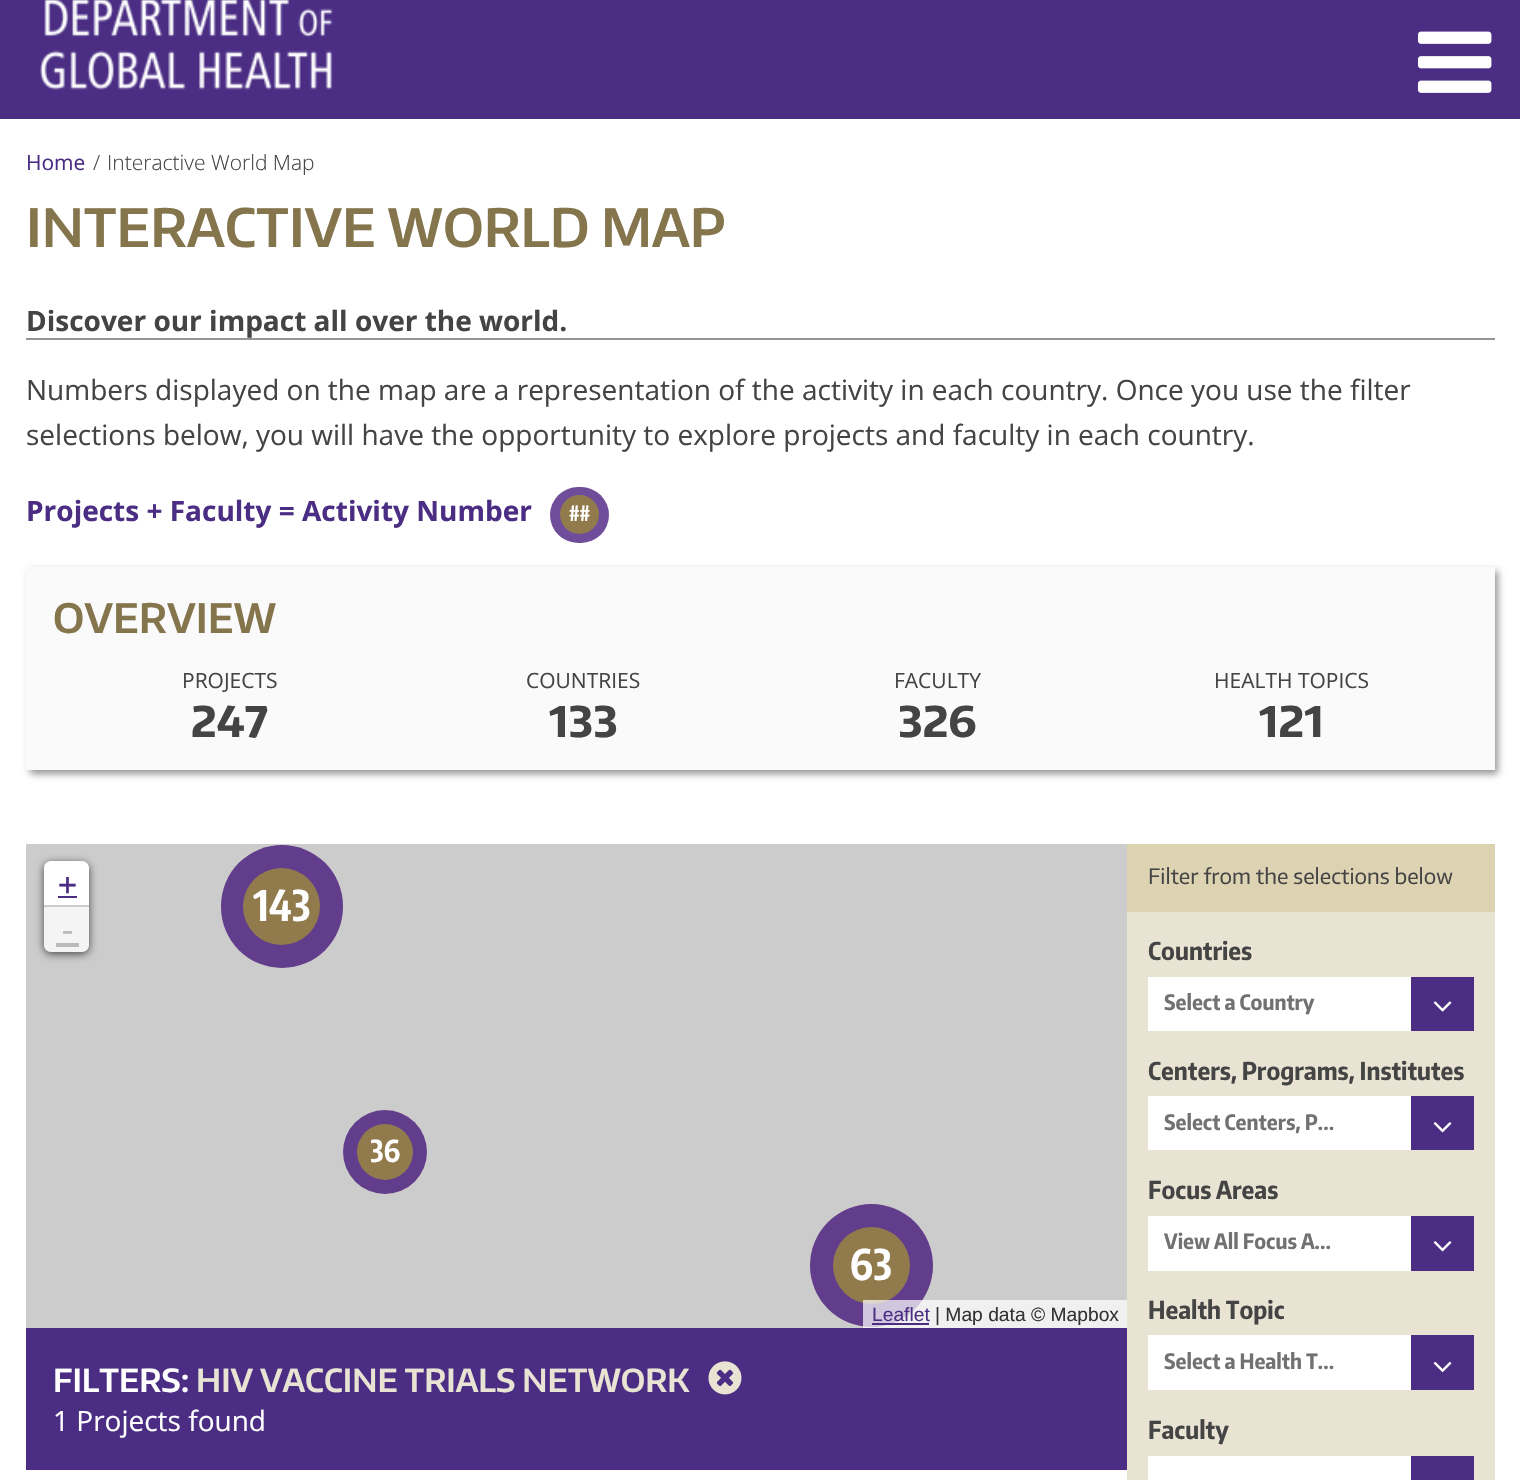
void draw(SkCanvas* canvas) {
    SkPaint paint;
    paint.setAntiAlias(true);
    canvas->clear(0xFF4B2E84);
    canvas->drawImageRect(SkImages::DeferredFromEncodedData(SkData::MakeFromFileName("img1.png")), SkRect::MakeXYWH(40, 0, 293, 90), SkSamplingOptions());
    canvas->drawImageRect(SkImages::DeferredFromEncodedData(SkData::MakeFromFileName("img2.png")), SkRect::MakeXYWH(1417, 31, 75, 62), SkSamplingOptions());
    paint.setColor(0xFFFFFFFF);
    canvas->drawRect(SkRect::MakeXYWH(0, 119, 1520, 1361), paint);
    SkFont font1(fontMgr->matchFamilyStyle("Open Sans", SkFontStyle::Normal()), 21);
    font1.setSubpixel(true);
    paint.setColor(0xFF4B2E84);
    canvas->drawString("Home", 26, 170, font1, paint);
    SkFont font2(fontMgr->matchFamilyStyle("Open Sans", SkFontStyle(300, SkFontStyle::kNormal_Width, SkFontStyle::kUpright_Slant)), 21);
    font2.setSubpixel(true);
    paint.setColor(0xFF444444);
    canvas->drawString("/", 93, 170, font2, paint);
    canvas->drawString("Interactive World Map", 107, 170, font2, paint);
    SkFont font3(fontMgr->matchFamilyStyle("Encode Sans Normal", SkFontStyle(600, SkFontStyle::kNormal_Width, SkFontStyle::kUpright_Slant)), 52.5f);
    font3.setSubpixel(true);
    paint.setColor(0xFF85754D);
    canvas->drawString("INTERACTIVE WORLD MAP", 26, 247, font3, paint);
    paint.setColor(0xFF959595);
    canvas->drawRect(SkRect::MakeXYWH(26, 338, 1469, 2), paint);
    SkFont font4(fontMgr->matchFamilyStyle("Open Sans", SkFontStyle::Bold()), 28);
    font4.setSubpixel(true);
    paint.setColor(0xFF444444);
    canvas->drawString("Discover our impact all over the world.", 26, 331, font4, paint);
    SkFont font5(fontMgr->matchFamilyStyle("Open Sans", SkFontStyle::Normal()), 28);
    font5.setSubpixel(true);
    canvas->drawString("Numbers displayed on the map are a representation of the activity in each country. Once you use the filter", 26, 400, font5, paint);
    canvas->drawString("selections below, you will have the opportunity to explore projects and faculty in each country.", 26, 445, font5, paint);
    paint.setColor(0xFF4B2E84);
    canvas->drawString("Projects + Faculty = Activity Number", 26, 521, font4, paint);
    paint.setColor(0xFF704D9A);
    canvas->drawRoundRect(SkRect::MakeXYWH(550, 487, 59, 56), 28, 28, paint);
    paint.setColor(0xFF917B4C);
    canvas->drawCircle(579.5f, 514.5f, 19.5f, paint);
    SkFont font6(fontMgr->matchFamilyStyle("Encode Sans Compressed", SkFontStyle::Bold()), 21);
    font6.setSubpixel(true);
    paint.setColor(0xFFFFFFFF);
    canvas->drawString("##", 569, 521, font6, paint);
    paint.setColor(0xFF959595);
    paint.setMaskFilter(SkMaskFilter::MakeBlur(kNormal_SkBlurStyle, 3.5f));
    canvas->drawRect(SkRect::MakeXYWH(30, 571, 1468, 203), paint);
    paint.setMaskFilter(nullptr);
    paint.setColor(0xFFFAFAFA);
    canvas->drawRect(SkRect::MakeXYWH(26, 567, 1469, 203), paint);
    SkFont font7(fontMgr->matchFamilyStyle("Encode Sans Normal", SkFontStyle(600, SkFontStyle::kNormal_Width, SkFontStyle::kUpright_Slant)), 40.25f);
    font7.setSubpixel(true);
    paint.setColor(0xFF85754D);
    canvas->drawString("OVERVIEW", 53, 633, font7, paint);
    paint.setColor(0xFF444444);
    canvas->drawString("PROJECTS", 182, 688, font1, paint);
    SkFont font8(fontMgr->matchFamilyStyle("Encode Sans Normal", SkFontStyle::Bold()), 42);
    font8.setSubpixel(true);
    canvas->drawString("247", 191, 737, font8, paint);
    canvas->drawString("COUNTRIES", 526, 688, font1, paint);
    canvas->drawString("133", 549, 737, font8, paint);
    canvas->drawString("FACULTY", 894, 688, font1, paint);
    canvas->drawString("326", 898, 737, font8, paint);
    canvas->drawString("HEALTH TOPICS", 1214, 688, font1, paint);
    canvas->drawString("121", 1259, 737, font8, paint);
    paint.setColor(0xFFCDCCCC);
    canvas->drawRect(SkRect::MakeXYWH(26, 844, 1101, 484), paint);
    paint.setColor(0xA6000000);
    paint.setMaskFilter(SkMaskFilter::MakeBlur(kNormal_SkBlurStyle, 4.5f));
    canvas->drawRoundRect(SkRect::MakeXYWH(44, 863, 45, 91), 7, 7, paint);
    paint.setMaskFilter(nullptr);
    paint.setColor(0xFFFFFFFF);
    canvas->drawPath(SkPathBuilder().moveTo(51, 861).lineTo(82, 861).cubicTo(86, 861, 89, 864, 89, 868).lineTo(89, 907).lineTo(44, 907).lineTo(44, 868).cubicTo(44, 864, 47, 861, 51, 861).close().detach(), paint);
    paint.setColor(0xFFCCCCCC);
    canvas->drawRect(SkRect::MakeXYWH(44, 905, 45, 2), paint);
    SkFont font9(fontMgr->matchFamilyStyle("DejaVu Sans Mono", SkFontStyle::Normal()), 31.5f);
    font9.setSubpixel(true);
    paint.setColor(0xFF4B2E84);
    canvas->drawString("+", 58, 895, font9, paint);
    canvas->drawRect(SkRect::MakeXYWH(58, 896, 19, 2), paint);
    paint.setColor(0xFFF4F4F4);
    canvas->drawPath(SkPathBuilder().moveTo(44, 907).lineTo(89, 907).lineTo(89, 945).cubicTo(89, 949, 86, 952, 82, 952).lineTo(51, 952).cubicTo(47, 952, 44, 949, 44, 945).close().detach(), paint);
    SkFont font10(fontMgr->matchFamilyStyle("DejaVu Sans Mono", SkFontStyle::Normal()), 35);
    font10.setSubpixel(true);
    paint.setColor(0xFFBBBBBB);
    canvas->drawString("-", 57, 942, font10, paint);
    canvas->drawRect(SkRect::MakeXYWH(56, 943, 23, 4), paint);
    paint.setColor(0xFF613D8B);
    canvas->drawCircle(871.5f, 1265.5f, 61.5f, paint);
    paint.setColor(0xFF917B4C);
    canvas->drawCircle(871.5f, 1265.5f, 38.5f, paint);
    paint.setColor(0xB3FFFFFF);
    canvas->drawRect(SkRect::MakeXYWH(863, 1300, 264, 28), paint);
    SkFont font11(fontMgr->matchFamilyStyle("Liberation Sans", SkFontStyle::Normal()), 19.25f);
    font11.setSubpixel(true);
    paint.setColor(0xFF4B2E84);
    canvas->drawString("Leaflet", 872, 1321, font11, paint);
    canvas->drawRect(SkRect::MakeXYWH(872, 1323, 57, 2), paint);
    paint.setColor(0xFF333333);
    canvas->drawString("| Map data © Mapbox", 935, 1321, font11, paint);
    paint.setColor(0xFF613D8B);
    canvas->drawRoundRect(SkRect::MakeXYWH(221, 845, 122, 123), 61, 61, paint);
    paint.setColor(0xFF917B4C);
    canvas->drawCircle(281.5f, 906.5f, 38.5f, paint);
    SkFont font12(fontMgr->matchFamilyStyle("Encode Sans Compressed", SkFontStyle::Bold()), 42);
    font12.setSubpixel(true);
    paint.setColor(0xFFFFFFFF);
    canvas->drawString("143", 253, 921, font12, paint);
    paint.setColor(0xFF613D8B);
    canvas->drawCircle(385, 1152, 42, paint);
    paint.setColor(0xFF917B4C);
    canvas->drawCircle(385, 1152, 28, paint);
    SkFont font13(fontMgr->matchFamilyStyle("Encode Sans Compressed", SkFontStyle::Bold()), 30);
    font13.setSubpixel(true);
    paint.setColor(0xFFFFFFFF);
    canvas->drawString("36", 370, 1162, font13, paint);
    canvas->drawString("63", 850, 1280, font12, paint);
    paint.setColor(0xFFE8E3D3);
    canvas->drawRect(SkRect::MakeXYWH(1127, 912, 368, 568), paint);
    paint.setColor(0xFFDDD3B3);
    canvas->drawRect(SkRect::MakeXYWH(1127, 844, 368, 68), paint);
    SkFont font14(fontMgr->matchFamilyStyle("Encode Sans Normal", SkFontStyle::Normal()), 21);
    font14.setSubpixel(true);
    paint.setColor(0xFF444444);
    canvas->drawString("Filter from the selections below", 1148, 884, font14, paint);
    SkFont font15(fontMgr->matchFamilyStyle("Encode Sans Condensed", SkFontStyle::Bold()), 24.5f);
    font15.setSubpixel(true);
    canvas->drawString("Countries", 1148, 960, font15, paint);
    paint.setColor(0xFFFFFFFF);
    canvas->drawRect(SkRect::MakeXYWH(1148, 977, 263, 54), paint);
    SkFont font16(fontMgr->matchFamilyStyle("Encode Sans Condensed", SkFontStyle::Bold()), 21);
    font16.setSubpixel(true);
    paint.setColor(0xFF717171);
    canvas->drawString("Select a Country", 1164, 1010, font16, paint);
    paint.setColor(0xFF4B2E84);
    canvas->drawRect(SkRect::MakeXYWH(1411, 977, 63, 54), paint);
    canvas->drawImageRect(SkImages::DeferredFromEncodedData(SkData::MakeFromFileName("img3.png")), SkRect::MakeXYWH(1433, 1001, 19, 11), SkSamplingOptions());
    paint.setColor(0xFF444444);
    canvas->drawString("Centers, Programs, Institutes", 1148, 1080, font15, paint);
    paint.setColor(0xFFFFFFFF);
    canvas->drawRect(SkRect::MakeXYWH(1148, 1096, 263, 54), paint);
    paint.setColor(0xFF717171);
    canvas->drawString("Select Centers, P…", 1164, 1130, font16, paint);
    paint.setColor(0xFF4B2E84);
    canvas->drawRect(SkRect::MakeXYWH(1411, 1096, 63, 54), paint);
    canvas->drawImageRect(SkImages::DeferredFromEncodedData(SkData::MakeFromFileName("img4.png")), SkRect::MakeXYWH(1433, 1122, 19, 11), SkSamplingOptions());
    paint.setColor(0xFF444444);
    canvas->drawString("Focus Areas", 1148, 1199, font15, paint);
    paint.setColor(0xFFFFFFFF);
    canvas->drawRect(SkRect::MakeXYWH(1148, 1216, 263, 55), paint);
    paint.setColor(0xFF717171);
    canvas->drawString("View All Focus A…", 1164, 1249, font16, paint);
    paint.setColor(0xFF4B2E84);
    canvas->drawRect(SkRect::MakeXYWH(1411, 1216, 63, 55), paint);
    canvas->drawImageRect(SkImages::DeferredFromEncodedData(SkData::MakeFromFileName("img4.png")), SkRect::MakeXYWH(1433, 1241, 19, 11), SkSamplingOptions());
    paint.setColor(0xFF444444);
    canvas->drawString("Health Topic", 1148, 1319, font15, paint);
    paint.setColor(0xFFFFFFFF);
    canvas->drawRect(SkRect::MakeXYWH(1148, 1335, 263, 55), paint);
    paint.setColor(0xFF717171);
    canvas->drawString("Select a Health T…", 1164, 1369, font16, paint);
    paint.setColor(0xFF4B2E84);
    canvas->drawRect(SkRect::MakeXYWH(1411, 1335, 63, 55), paint);
    canvas->drawImageRect(SkImages::DeferredFromEncodedData(SkData::MakeFromFileName("img5.png")), SkRect::MakeXYWH(1433, 1361, 19, 12), SkSamplingOptions());
    paint.setColor(0xFF444444);
    canvas->drawString("Faculty", 1148, 1439, font15, paint);
    paint.setColor(0xFFFFFFFF);
    canvas->drawRect(SkRect::MakeXYWH(1148, 1456, 263, 24), paint);
    paint.setColor(0xFF4B2E84);
    canvas->drawRect(SkRect::MakeXYWH(1411, 1456, 63, 24), paint);
    canvas->drawRect(SkRect::MakeXYWH(26, 1328, 1101, 142), paint);
    SkFont font17(fontMgr->matchFamilyStyle("Encode Sans Normal", SkFontStyle(600, SkFontStyle::kNormal_Width, SkFontStyle::kUpright_Slant)), 31.5f);
    font17.setSubpixel(true);
    paint.setColor(0xFFFFFFFF);
    canvas->drawString("FILTERS:", 53, 1392, font17, paint);
    paint.setColor(0xFFE8E3D3);
    canvas->drawString("HIV VACCINE TRIALS NETWORK", 196, 1392, font17, paint);
    canvas->drawImageRect(SkImages::DeferredFromEncodedData(SkData::MakeFromFileName("img6.png")), SkRect::MakeXYWH(708, 1361, 34, 34), SkSamplingOptions());
    paint.setColor(0xFFFFFFFF);
    canvas->drawString("1 Projects found", 53, 1431, font5, paint);
}
